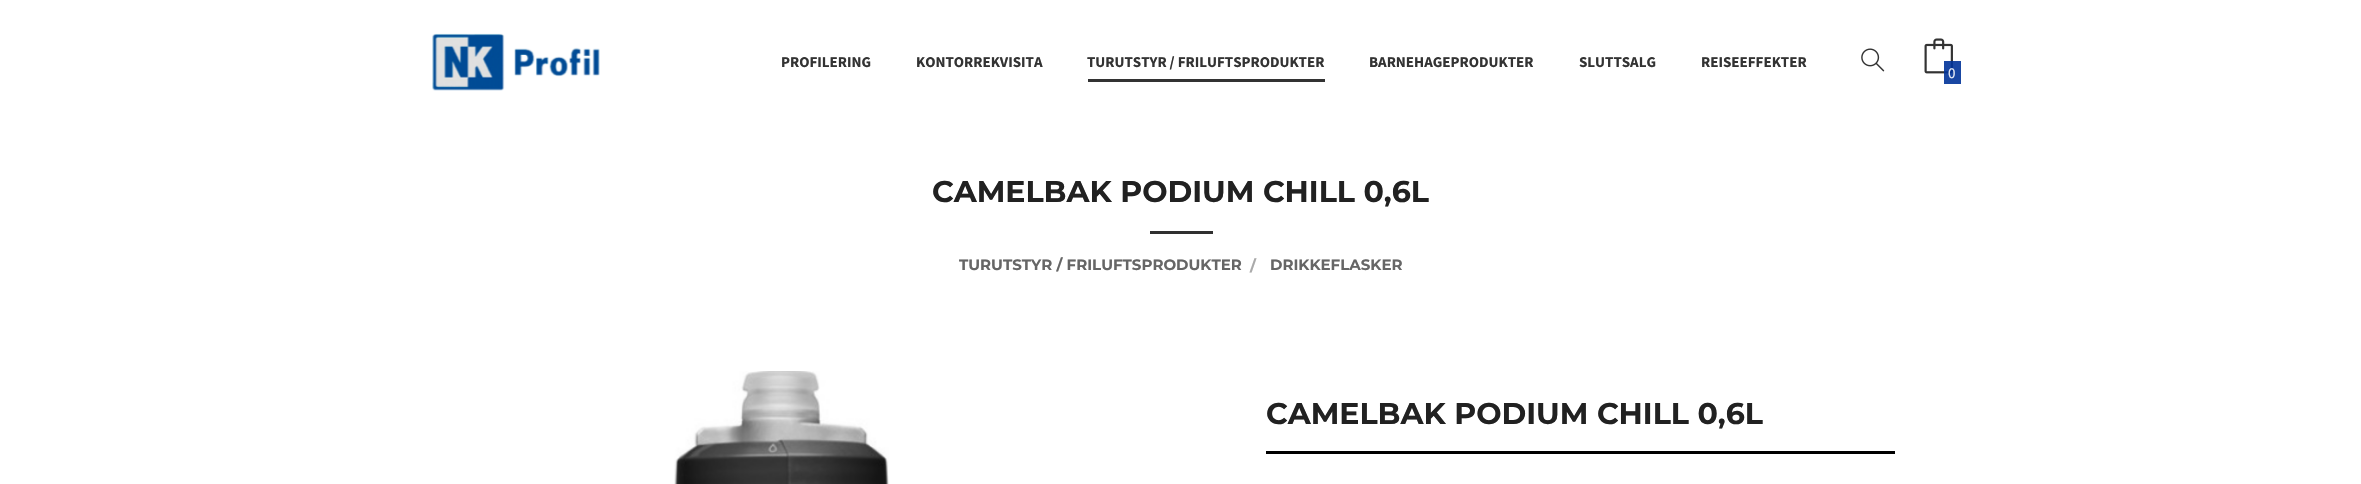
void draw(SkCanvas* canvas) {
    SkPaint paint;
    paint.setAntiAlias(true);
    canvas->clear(0xFFFFFFFF);
    canvas->drawImageRect(SkImages::DeferredFromEncodedData(SkData::MakeFromFileName("img1.png")), SkRect::MakeXYWH(432, 33, 168, 58), SkSamplingOptions());
    SkFont font1(fontMgr->matchFamilyStyle("Source Sans Pro", SkFontStyle::Bold()), 15);
    font1.setSubpixel(true);
    paint.setColor(0xFF333333);
    canvas->drawString("PROFILERING", 781, 67, font1, paint);
    canvas->drawString("KONTORREKVISITA", 916, 67, font1, paint);
    canvas->drawRect(SkRect::MakeXYWH(1088, 79, 237, 3), paint);
    canvas->drawString("TURUTSTYR / FRILUFTSPRODUKTER", 1087, 67, font1, paint);
    canvas->drawString("BARNEHAGEPRODUKTER", 1369, 67, font1, paint);
    canvas->drawString("SLUTTSALG", 1579, 67, font1, paint);
    canvas->drawString("REISEEFFEKTER", 1701, 67, font1, paint);
    canvas->drawImageRect(SkImages::DeferredFromEncodedData(SkData::MakeFromFileName("img2.png")), SkRect::MakeXYWH(1861, 48, 24, 24), SkSamplingOptions());
    canvas->drawImageRect(SkImages::DeferredFromEncodedData(SkData::MakeFromFileName("img3.png")), SkRect::MakeXYWH(1924, 38, 29, 36), SkSamplingOptions());
    paint.setColor(0xE6003399);
    canvas->drawRect(SkRect::MakeXYWH(1944, 61, 17, 23), paint);
    SkFont font2(fontMgr->matchFamilyStyle("Source Sans Pro", SkFontStyle::Normal()), 15);
    font2.setSubpixel(true);
    paint.setColor(0xFFE8ECF5);
    canvas->drawString("0", 1948, 78, font2, paint);
    SkFont font3(fontMgr->matchFamilyStyle("Montserrat", SkFontStyle::Bold()), 30);
    font3.setSubpixel(true);
    paint.setColor(0xFF212121);
    canvas->drawString("CAMELBAK PODIUM CHILL 0,6L", 932, 202, font3, paint);
    paint.setColor(0xFF303030);
    canvas->drawRect(SkRect::MakeXYWH(1150, 231, 63, 3), paint);
    SkFont font4(fontMgr->matchFamilyStyle("Montserrat", SkFontStyle::Bold()), 15);
    font4.setSubpixel(true);
    paint.setColor(0xFF666666);
    canvas->drawString("TURUTSTYR / FRILUFTSPRODUKTER", 959, 270, font4, paint);
    paint.setColor(0xFFAAAAAA);
    canvas->drawString("/", 1250, 271, font4, paint);
    paint.setColor(0xFF666666);
    canvas->drawString("DRIKKEFLASKER", 1270, 270, font4, paint);
    canvas->drawImageRect(SkImages::DeferredFromEncodedData(SkData::MakeFromFileName("img4.png")), SkRect::MakeXYWH(674, 371, 215, 113), SkSamplingOptions());
    paint.setColor(0xFF000000);
    canvas->drawRect(SkRect::MakeXYWH(1266, 451, 629, 3), paint);
    paint.setColor(0xFF212121);
    canvas->drawString("CAMELBAK PODIUM CHILL 0,6L", 1266, 424, font3, paint);
}
